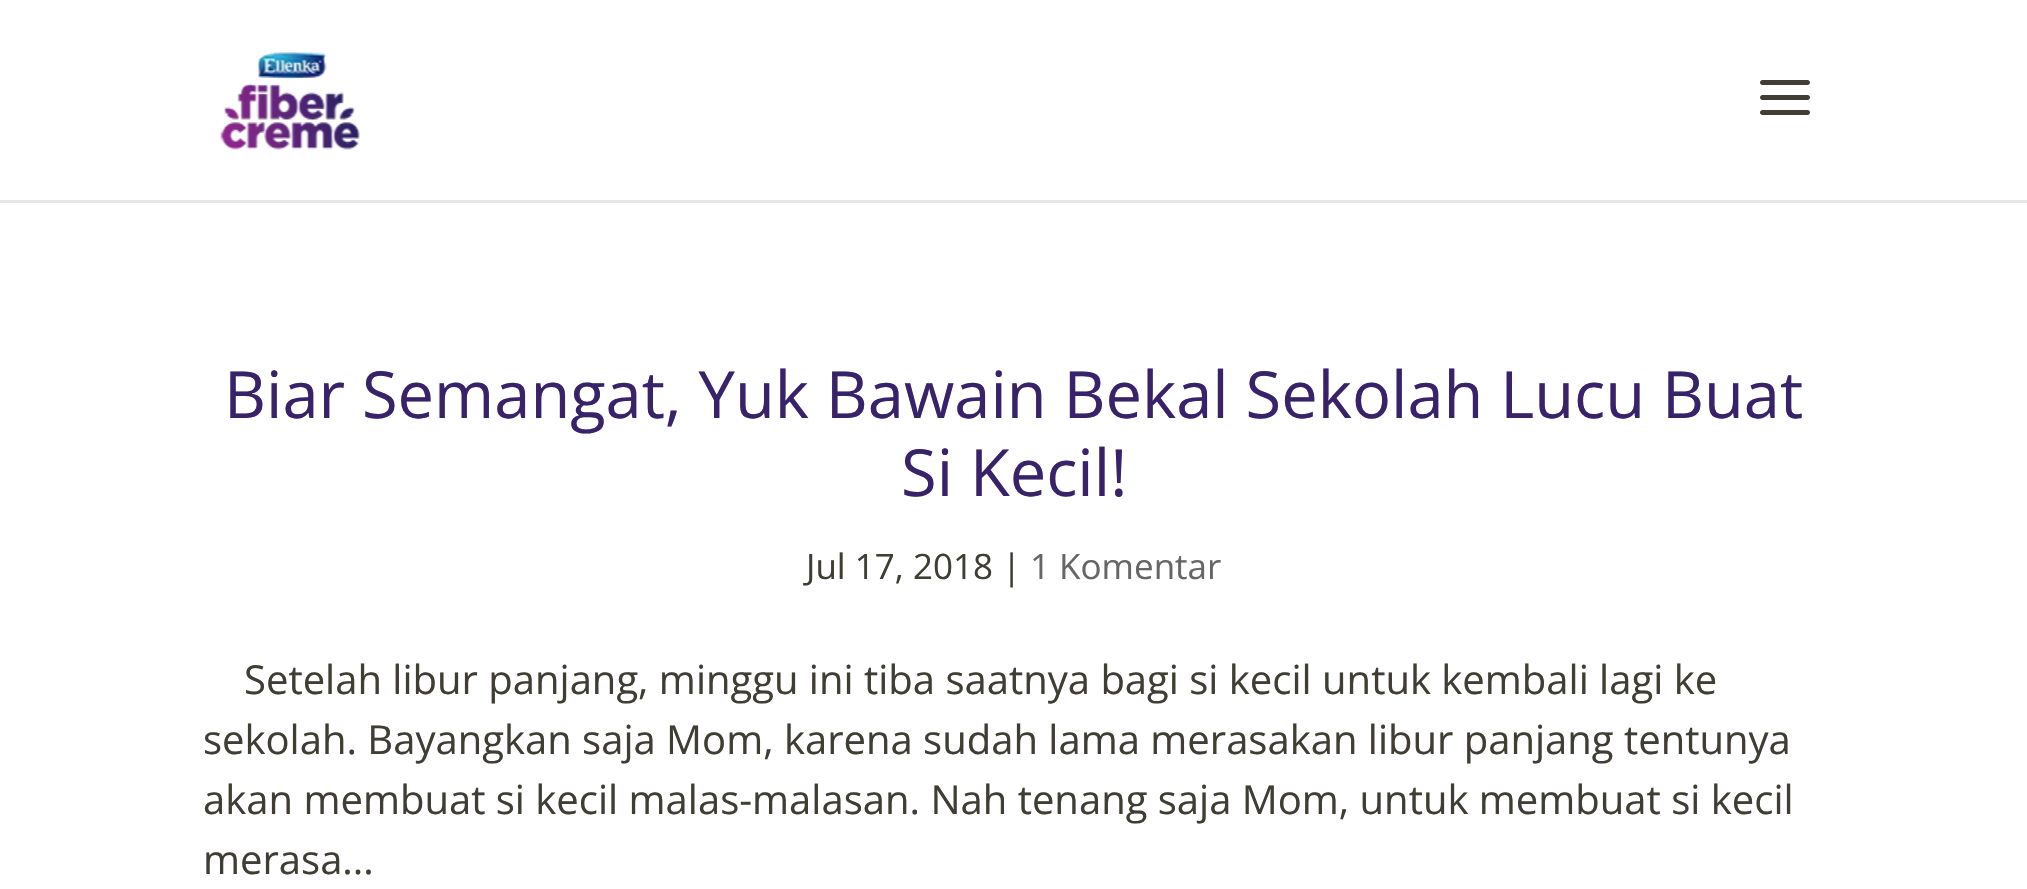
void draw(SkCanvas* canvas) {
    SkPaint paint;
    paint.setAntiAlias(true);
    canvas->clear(0xFFFFFFFF);
    paint.setColor(0xFFE6E6E6);
    canvas->drawPath(SkPathBuilder().moveTo(0, 200).lineTo(0, 203).lineTo(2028, 203).lineTo(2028, 3).lineTo(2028, 200).close().detach(), paint);
    canvas->drawImageRect(SkImages::DeferredFromEncodedData(SkData::MakeFromFileName("img1.png")), SkRect::MakeXYWH(220, 52, 140, 98), SkSamplingOptions());
    canvas->drawImageRect(SkImages::DeferredFromEncodedData(SkData::MakeFromFileName("img2.png")), SkRect::MakeXYWH(1760, 80, 50, 35), SkSamplingOptions());
    SkFont font1(fontMgr->matchFamilyStyle("Open Sans", SkFontStyle::Normal()), 65);
    font1.setSubpixel(true);
    paint.setColor(0xFF38236A);
    canvas->drawString("Biar Semangat, Yuk Bawain Bekal Sekolah Lucu Buat", 224, 418, font1, paint);
    canvas->drawString("Si Kecil!", 901, 496, font1, paint);
    SkFont font2(fontMgr->matchFamilyStyle("Open Sans", SkFontStyle::Normal()), 35);
    font2.setSubpixel(true);
    paint.setColor(0xFF403E34);
    canvas->drawString("Jul 17, 2018 |", 806, 579, font2, paint);
    paint.setColor(0xFF666666);
    canvas->drawString("1 Komentar", 1030, 579, font2, paint);
    SkFont font3(fontMgr->matchFamilyStyle("Open Sans", SkFontStyle::Normal()), 40);
    font3.setSubpixel(true);
    paint.setColor(0xFF403E34);
    canvas->drawString("Setelah libur panjang, minggu ini tiba saatnya bagi si kecil untuk kembali lagi ke", 244, 694, font3, paint);
    canvas->drawString("sekolah. Bayangkan saja Mom, karena sudah lama merasakan libur panjang tentunya", 203, 754, font3, paint);
    canvas->drawString("akan membuat si kecil malas-malasan. Nah tenang saja Mom, untuk membuat si kecil", 203, 814, font3, paint);
    canvas->drawString("merasa...", 203, 874, font3, paint);
}
